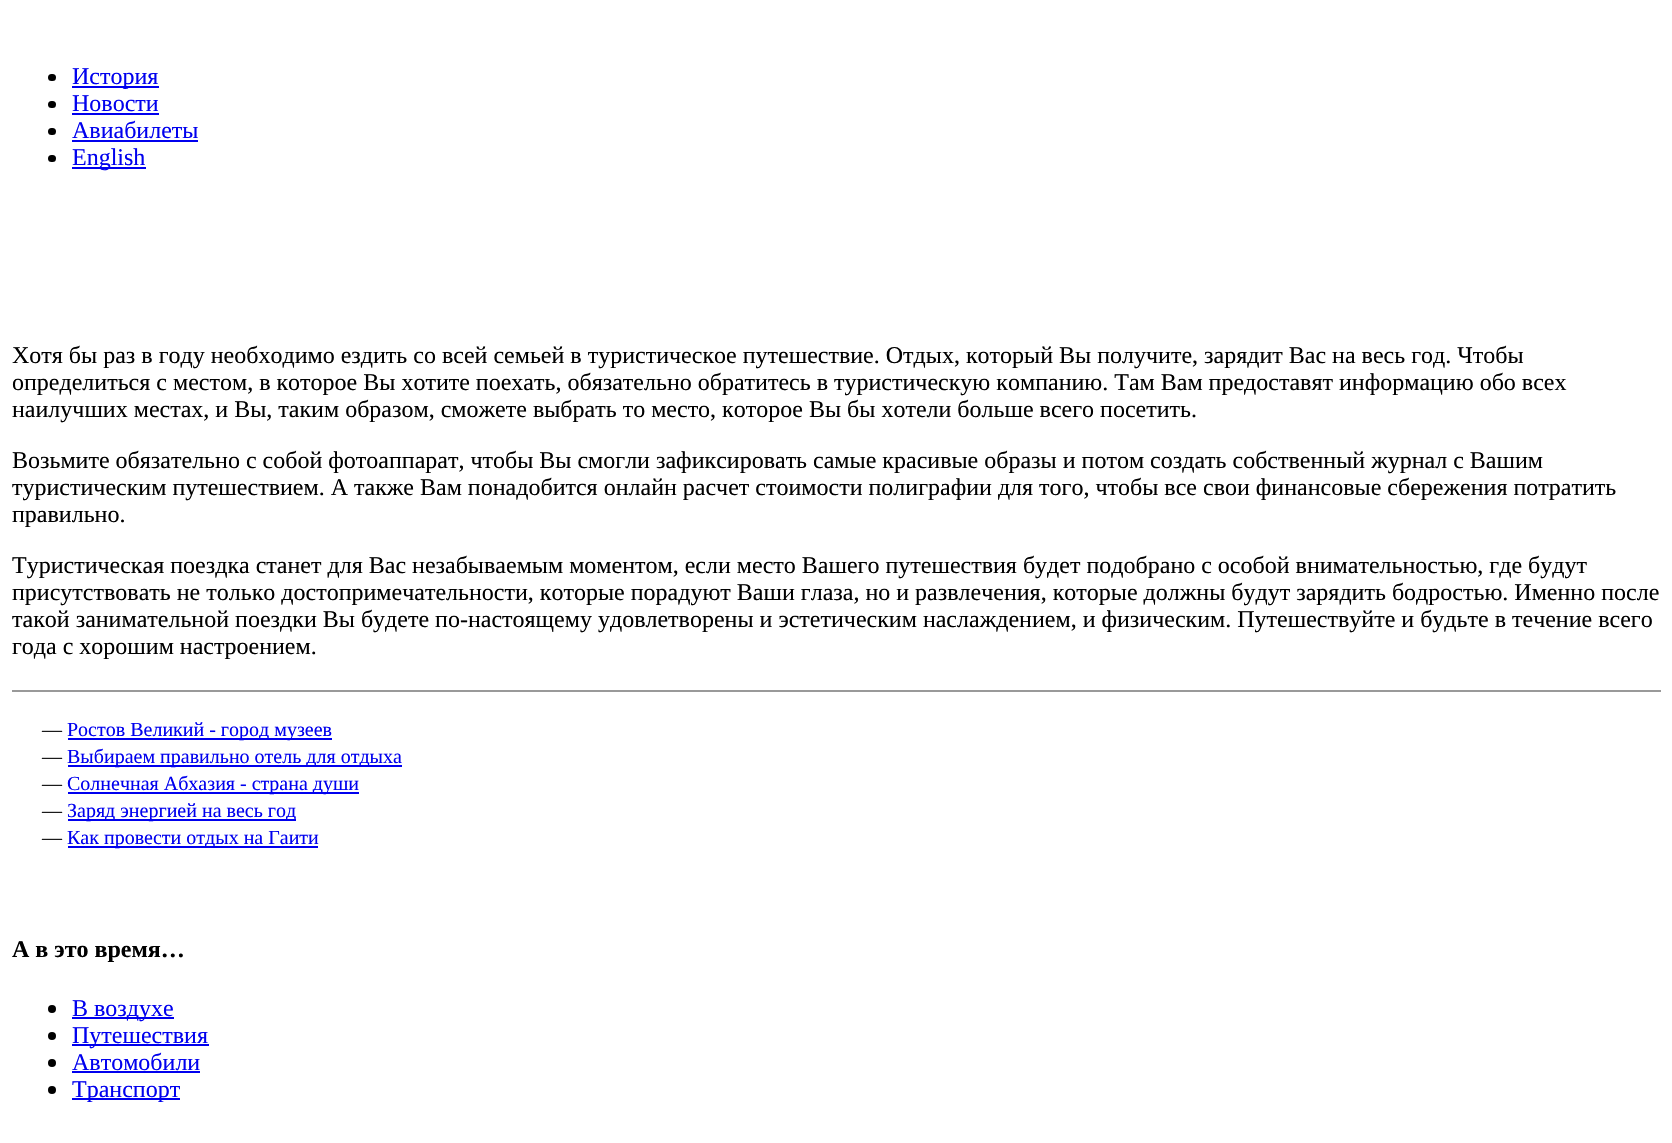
void draw(SkCanvas* canvas) {
    SkPaint paint;
    paint.setAntiAlias(true);
    canvas->clear(0xFFFFFFFF);
    paint.setColor(0xFF000000);
    canvas->drawRoundRect(SkRect::MakeXYWH(48, 74, 8, 7), 3.5f, 3.5f, paint);
    paint.setColor(0xFF0000EE);
    canvas->drawRect(SkRect::MakeXYWH(72, 86, 87, 2), paint);
    SkFont font1(fontMgr->matchFamilyStyle("Liberation Serif", SkFontStyle::Normal()), 24);
    font1.setSubpixel(true);
    canvas->drawString("История", 72, 84, font1, paint);
    paint.setColor(0xFF000000);
    canvas->drawRoundRect(SkRect::MakeXYWH(48, 101, 8, 7), 3.5f, 3.5f, paint);
    paint.setColor(0xFF0000EE);
    canvas->drawString("Новости", 72, 111, font1, paint);
    canvas->drawRect(SkRect::MakeXYWH(72, 113, 87, 2), paint);
    paint.setColor(0xFF000000);
    canvas->drawRoundRect(SkRect::MakeXYWH(48, 128, 8, 7), 3.5f, 3.5f, paint);
    paint.setColor(0xFF0000EE);
    canvas->drawString("Авиабилеты", 72, 138, font1, paint);
    canvas->drawRect(SkRect::MakeXYWH(72, 140, 126, 2), paint);
    paint.setColor(0xFF000000);
    canvas->drawRoundRect(SkRect::MakeXYWH(48, 155, 8, 7), 3.5f, 3.5f, paint);
    paint.setColor(0xFF0000EE);
    canvas->drawRect(SkRect::MakeXYWH(72, 167, 74, 2), paint);
    canvas->drawString("English", 72, 165, font1, paint);
    paint.setColor(0xFF000000);
    canvas->drawString("Хотя бы раз в году необходимо ездить со всей семьей в туристическое путешествие. Отдых, который Вы получите, зарядит Вас на весь год. Чтобы", 12, 363, font1, paint);
    canvas->drawString("определиться с местом, в которое Вы хотите поехать, обязательно обратитесь в туристическую компанию. Там Вам предоставят информацию обо всех", 12, 390, font1, paint);
    canvas->drawString("наилучших местах, и Вы, таким образом, сможете выбрать то место, которое Вы бы хотели больше всего посетить.", 12, 417, font1, paint);
    canvas->drawString("Возьмите обязательно с собой фотоаппарат, чтобы Вы смогли зафиксировать самые красивые образы и потом создать собственный журнал с Вашим", 12, 468, font1, paint);
    canvas->drawString("туристическим путешествием. А также Вам понадобится онлайн расчет стоимости полиграфии для того, чтобы все свои финансовые сбережения потратить", 12, 495, font1, paint);
    canvas->drawString("правильно.", 12, 522, font1, paint);
    canvas->drawString("Туристическая поездка станет для Вас незабываемым моментом, если место Вашего путешествия будет подобрано с особой внимательностью, где будут", 12, 573, font1, paint);
    canvas->drawString("присутствовать не только достопримечательности, которые порадуют Ваши глаза, но и развлечения, которые должны будут зарядить бодростью. Именно после", 12, 600, font1, paint);
    canvas->drawString("такой занимательной поездки Вы будете по-настоящему удовлетворены и эстетическим наслаждением, и физическим. Путешествуйте и будьте в течение всего", 12, 627, font1, paint);
    canvas->drawString("года с хорошим настроением.", 12, 654, font1, paint);
    paint.setColor(0xFF999999);
    canvas->drawRect(SkRect::MakeXYWH(12, 690, 1649, 2), paint);
    SkFont font2(fontMgr->matchFamilyStyle("Liberation Serif", SkFontStyle::Normal()), 20);
    font2.setSubpixel(true);
    paint.setColor(0xFF000000);
    canvas->drawString("—", 42, 736, font2, paint);
    paint.setColor(0xFF0000EE);
    canvas->drawRect(SkRect::MakeXYWH(68, 738, 264, 2), paint);
    canvas->drawString("Ростов Великий - город музеев", 67, 736, font2, paint);
    paint.setColor(0xFF000000);
    canvas->drawString("—", 42, 763, font2, paint);
    paint.setColor(0xFF0000EE);
    canvas->drawRect(SkRect::MakeXYWH(68, 765, 334, 2), paint);
    canvas->drawString("Выбираем правильно отель для отдыха", 67, 763, font2, paint);
    paint.setColor(0xFF000000);
    canvas->drawString("—", 42, 790, font2, paint);
    paint.setColor(0xFF0000EE);
    canvas->drawRect(SkRect::MakeXYWH(68, 792, 291, 2), paint);
    canvas->drawString("Солнечная Абхазия - страна души", 67, 790, font2, paint);
    paint.setColor(0xFF000000);
    canvas->drawString("—", 42, 817, font2, paint);
    paint.setColor(0xFF0000EE);
    canvas->drawRect(SkRect::MakeXYWH(68, 819, 228, 2), paint);
    canvas->drawString("Заряд энергией на весь год", 67, 817, font2, paint);
    paint.setColor(0xFF000000);
    canvas->drawString("—", 42, 844, font2, paint);
    paint.setColor(0xFF0000EE);
    canvas->drawRect(SkRect::MakeXYWH(68, 846, 250, 2), paint);
    canvas->drawString("Как провести отдых на Гаити", 67, 844, font2, paint);
    SkFont font3(fontMgr->matchFamilyStyle("Liberation Serif", SkFontStyle::Bold()), 24);
    font3.setSubpixel(true);
    paint.setColor(0xFF000000);
    canvas->drawString("А в это время…", 12, 957, font3, paint);
    canvas->drawCircle(52, 1009, 4, paint);
    paint.setColor(0xFF0000EE);
    canvas->drawRect(SkRect::MakeXYWH(72, 1017, 102, 2), paint);
    canvas->drawString("В воздухе", 72, 1016, font1, paint);
    paint.setColor(0xFF000000);
    canvas->drawCircle(52, 1036, 4, paint);
    paint.setColor(0xFF0000EE);
    canvas->drawRect(SkRect::MakeXYWH(72, 1044, 137, 2), paint);
    canvas->drawString("Путешествия", 72, 1043, font1, paint);
    paint.setColor(0xFF000000);
    canvas->drawCircle(52, 1063, 4, paint);
    paint.setColor(0xFF0000EE);
    canvas->drawString("Автомобили", 72, 1070, font1, paint);
    canvas->drawRect(SkRect::MakeXYWH(72, 1071, 128, 2), paint);
    paint.setColor(0xFF000000);
    canvas->drawCircle(52, 1090, 4, paint);
    paint.setColor(0xFF0000EE);
    canvas->drawRect(SkRect::MakeXYWH(72, 1098, 108, 2), paint);
    canvas->drawString("Транспорт", 72, 1097, font1, paint);
}
